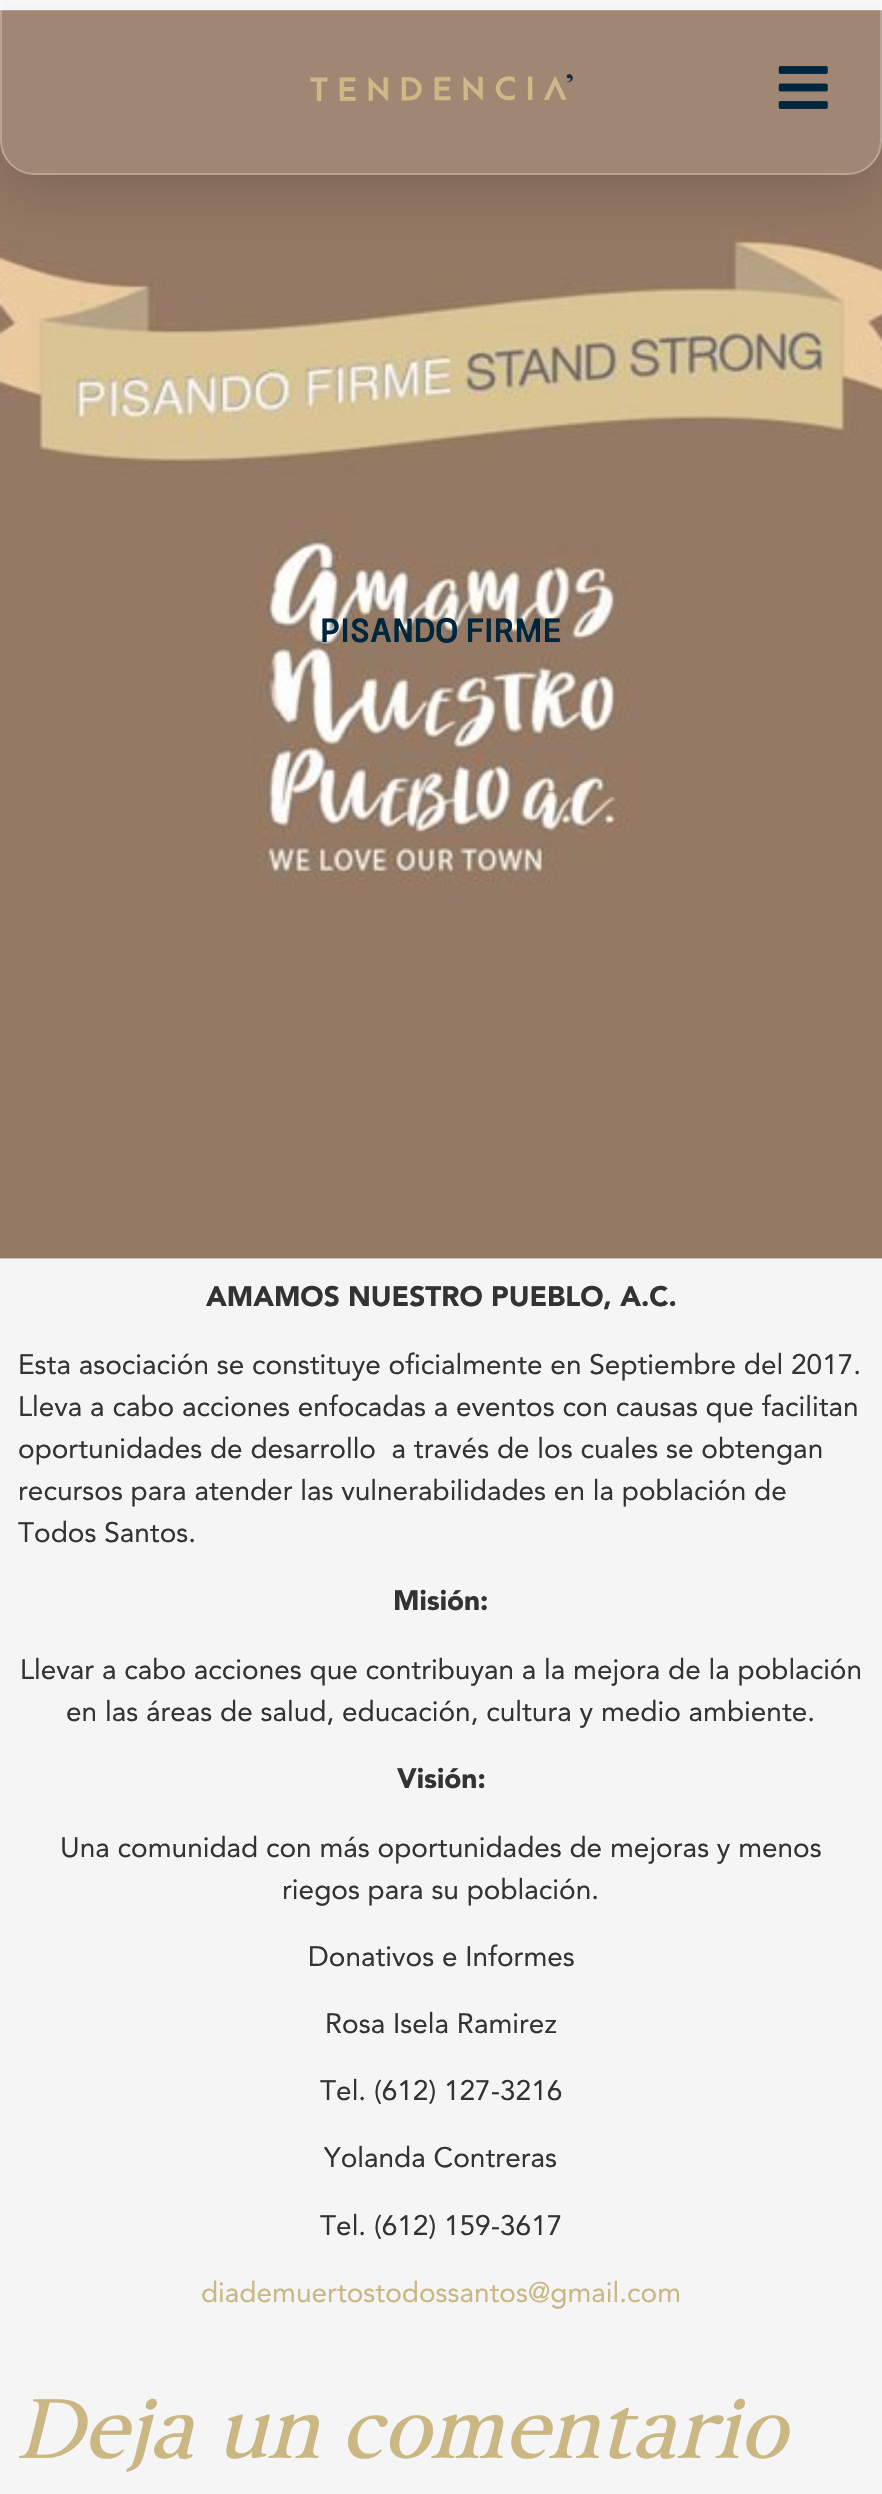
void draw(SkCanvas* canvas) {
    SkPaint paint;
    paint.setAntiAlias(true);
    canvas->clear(0xFFF5F5F5);
    canvas->drawImageRect(SkImages::DeferredFromEncodedData(SkData::MakeFromFileName("img3.png")), SkRect::MakeXYWH(0, 10, 882, 1249), SkSamplingOptions());
    canvas->save();
    canvas->clipPath(SkPathBuilder(SkPathFillType::kEvenOdd).moveTo(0, 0).lineTo(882, 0).lineTo(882, 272).lineTo(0, 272).close().moveTo(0, 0).lineTo(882, 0).lineTo(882, 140).cubicTo(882, 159.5f, 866.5f, 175, 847, 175).lineTo(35, 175).cubicTo(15.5f, 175, 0, 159.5f, 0, 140).close().detach(), true);
    paint.setColor(0x26000000);
    paint.setMaskFilter(SkMaskFilter::MakeBlur(kNormal_SkBlurStyle, 26));
    canvas->drawRoundRect(SkRect::MakeXYWH(0, 18, 882, 175), 35, 35, paint);
    paint.setMaskFilter(nullptr);
    canvas->restore();
    paint.setColor(0x1AFFFFFF);
    canvas->drawPath(SkPathBuilder().moveTo(0, 0).lineTo(882, 0).lineTo(882, 140).cubicTo(882, 159.5f, 866.5f, 175, 847, 175).lineTo(35, 175).cubicTo(15.5f, 175, 0, 159.5f, 0, 140).close().detach(), paint);
    paint.setStyle(SkPaint::kStroke_Style);
    paint.setStrokeWidth(2);
    paint.setColor(0x40FFFFFF);
    canvas->drawPath(SkPathBuilder().moveTo(1, 1).lineTo(881, 1).lineTo(881, 140).cubicTo(881, 159, 866, 174, 847, 174).lineTo(35, 174).cubicTo(16, 174, 1, 159, 1, 140).close().detach(), paint);
    canvas->drawImageRect(SkImages::DeferredFromEncodedData(SkData::MakeFromFileName("img1.png")), SkRect::MakeXYWH(310, 74, 264, 27), SkSamplingOptions());
    canvas->drawImageRect(SkImages::DeferredFromEncodedData(SkData::MakeFromFileName("img2.png")), SkRect::MakeXYWH(778, 66, 50, 43), SkSamplingOptions());
    SkFont font1(fontMgr->matchFamilyStyle("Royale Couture", SkFontStyle::Normal()), 33.5f);
    font1.setSubpixel(true);
    paint.setStyle(SkPaint::kFill_Style);
    paint.setColor(0xFF00263E);
    canvas->drawString("Pisando Firme", 320, 642, font1, paint);
    SkFont font2(fontMgr->matchFamilyStyle("Avenir", SkFontStyle(900, SkFontStyle::kNormal_Width, SkFontStyle::kUpright_Slant)), 28);
    font2.setSubpixel(true);
    paint.setColor(0xFF333333);
    canvas->drawString("AMAMOS NUESTRO PUEBLO, A.C.", 206, 1306, font2, paint);
    SkFont font3(fontMgr->matchFamilyStyle("Avenir", SkFontStyle::Normal()), 28);
    font3.setSubpixel(true);
    canvas->drawString("Esta asociación se constituye oficialmente en Septiembre del 2017.", 18, 1374, font3, paint);
    canvas->drawString("Lleva a cabo acciones enfocadas a eventos con causas que facilitan", 18, 1416, font3, paint);
    canvas->drawString("oportunidades de desarrollo  a través de los cuales se obtengan", 18, 1458, font3, paint);
    canvas->drawString("recursos para atender las vulnerabilidades en la población de", 18, 1500, font3, paint);
    canvas->drawString("Todos Santos.", 18, 1542, font3, paint);
    canvas->drawString("Misión:", 393, 1610, font2, paint);
    canvas->drawString("Llevar a cabo acciones que contribuyan a la mejora de la población", 20, 1679, font3, paint);
    canvas->drawString("en las áreas de salud, educación, cultura y medio ambiente.", 66, 1721, font3, paint);
    canvas->drawString("Visión:", 397, 1788, font2, paint);
    canvas->drawString("Una comunidad con más oportunidades de mejoras y menos", 60, 1857, font3, paint);
    canvas->drawString("riegos para su población.", 282, 1899, font3, paint);
    canvas->drawString("Donativos e Informes", 308, 1966, font3, paint);
    canvas->drawString("Rosa Isela Ramirez", 325, 2033, font3, paint);
    canvas->drawString("Tel. (612) 127-3216", 320, 2100, font3, paint);
    canvas->drawString("Yolanda Contreras", 324, 2167, font3, paint);
    canvas->drawString("Tel. (612) 159-3617", 320, 2235, font3, paint);
    paint.setColor(0xFFCAB783);
    canvas->drawString("diademuertostodossantos@gmail.com", 201, 2302, font3, paint);
    SkFont font4(fontMgr->matchFamilyStyle("Royale Couture", SkFontStyle::Italic()), 84);
    font4.setSubpixel(true);
    canvas->drawString("Deja un comentario", 18, 2458, font4, paint);
}
